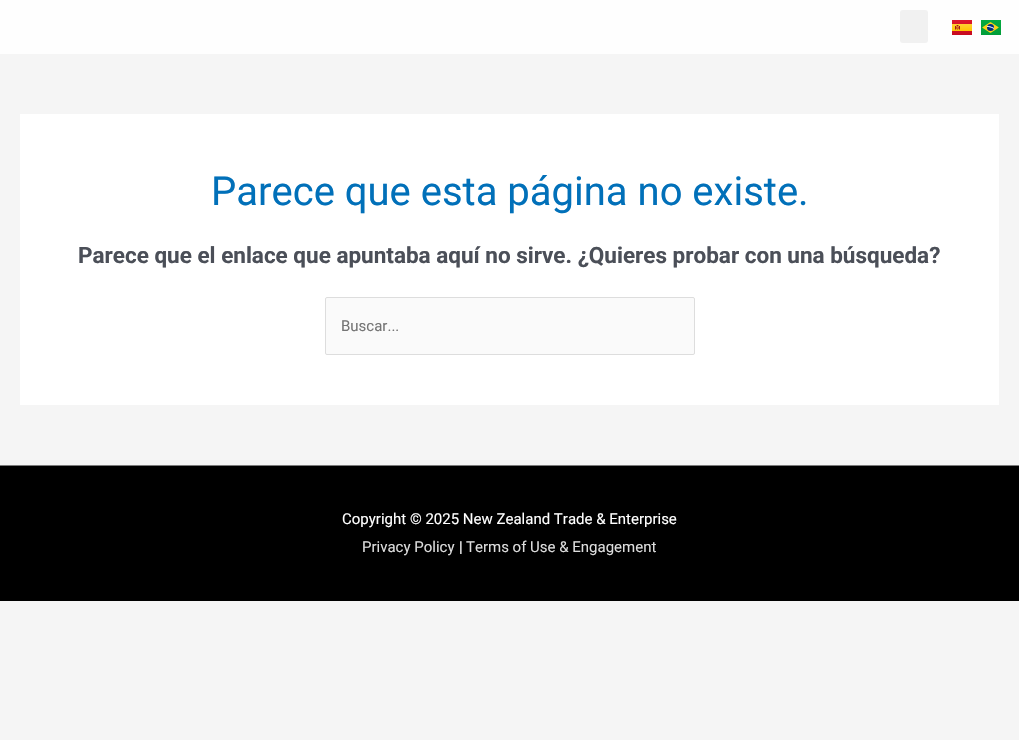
void draw(SkCanvas* canvas) {
    SkPaint paint;
    paint.setAntiAlias(true);
    canvas->clear(0xFFF5F5F5);
    paint.setColor(0xFFFEFEFE);
    canvas->drawRect(SkRect::MakeXYWH(0, 0, 1019, 54), paint);
    paint.setColor(0xFFF1F1F1);
    canvas->drawRoundRect(SkRect::MakeXYWH(900, 10, 28, 33), 3, 3, paint);
    canvas->drawImageRect(SkImages::DeferredFromEncodedData(SkData::MakeFromFileName("img1.png")), SkRect::MakeXYWH(952, 20, 20, 15), SkSamplingOptions());
    canvas->drawImageRect(SkImages::DeferredFromEncodedData(SkData::MakeFromFileName("img2.png")), SkRect::MakeXYWH(981, 20, 20, 15), SkSamplingOptions());
    paint.setColor(0xFFFFFFFF);
    canvas->drawRect(SkRect::MakeXYWH(20, 114, 979, 291), paint);
    SkFont font1(fontMgr->matchFamilyStyle("Roboto", SkFontStyle::Normal()), 40);
    font1.setSubpixel(true);
    paint.setColor(0xFF0170B9);
    canvas->drawString("Parece que esta página no existe.", 211, 205, font1, paint);
    SkFont font2(fontMgr->matchFamilyStyle("Roboto", SkFontStyle::Bold()), 22.5f);
    font2.setSubpixel(true);
    paint.setColor(0xFF4B4F58);
    canvas->drawString("Parece que el enlace que apuntaba aquí no sirve. ¿Quieres probar con una búsqueda?", 78, 263, font2, paint);
    paint.setColor(0xFFFAFAFA);
    canvas->drawRoundRect(SkRect::MakeXYWH(325.5f, 297.5f, 369, 57), 1.5f, 1.5f, paint);
    paint.setStyle(SkPaint::kStroke_Style);
    paint.setStrokeWidth(1);
    paint.setColor(0xFFDDDDDD);
    canvas->drawRoundRect(SkRect::MakeXYWH(325.5f, 297.5f, 369, 57), 1.5f, 1.5f, paint);
    SkFont font3(fontMgr->matchFamilyStyle("Roboto", SkFontStyle::Normal()), 15);
    font3.setSubpixel(true);
    paint.setStyle(SkPaint::kFill_Style);
    paint.setColor(0xFF757575);
    canvas->drawString("Buscar...", 341, 331, font3, paint);
    paint.setColor(0xFF7A7A7A);
    canvas->drawRect(SkRect::MakeXYWH(0, 465, 1019, 1), paint);
    paint.setColor(0xFF000000);
    canvas->drawRect(SkRect::MakeXYWH(0, 466, 1019, 135), paint);
    paint.setColor(0xFFFFFFFF);
    canvas->drawString("Copyright © 2025 New Zealand Trade & Enterprise", 342, 524, font3, paint);
    paint.setColor(0xFFDDDDDD);
    canvas->drawString("Privacy Policy", 362, 552, font3, paint);
    paint.setColor(0xFFFFFFFF);
    canvas->drawString("|", 459, 552, font3, paint);
    paint.setColor(0xFFDDDDDD);
    canvas->drawString("Terms of Use & Engagement", 466, 552, font3, paint);
}
